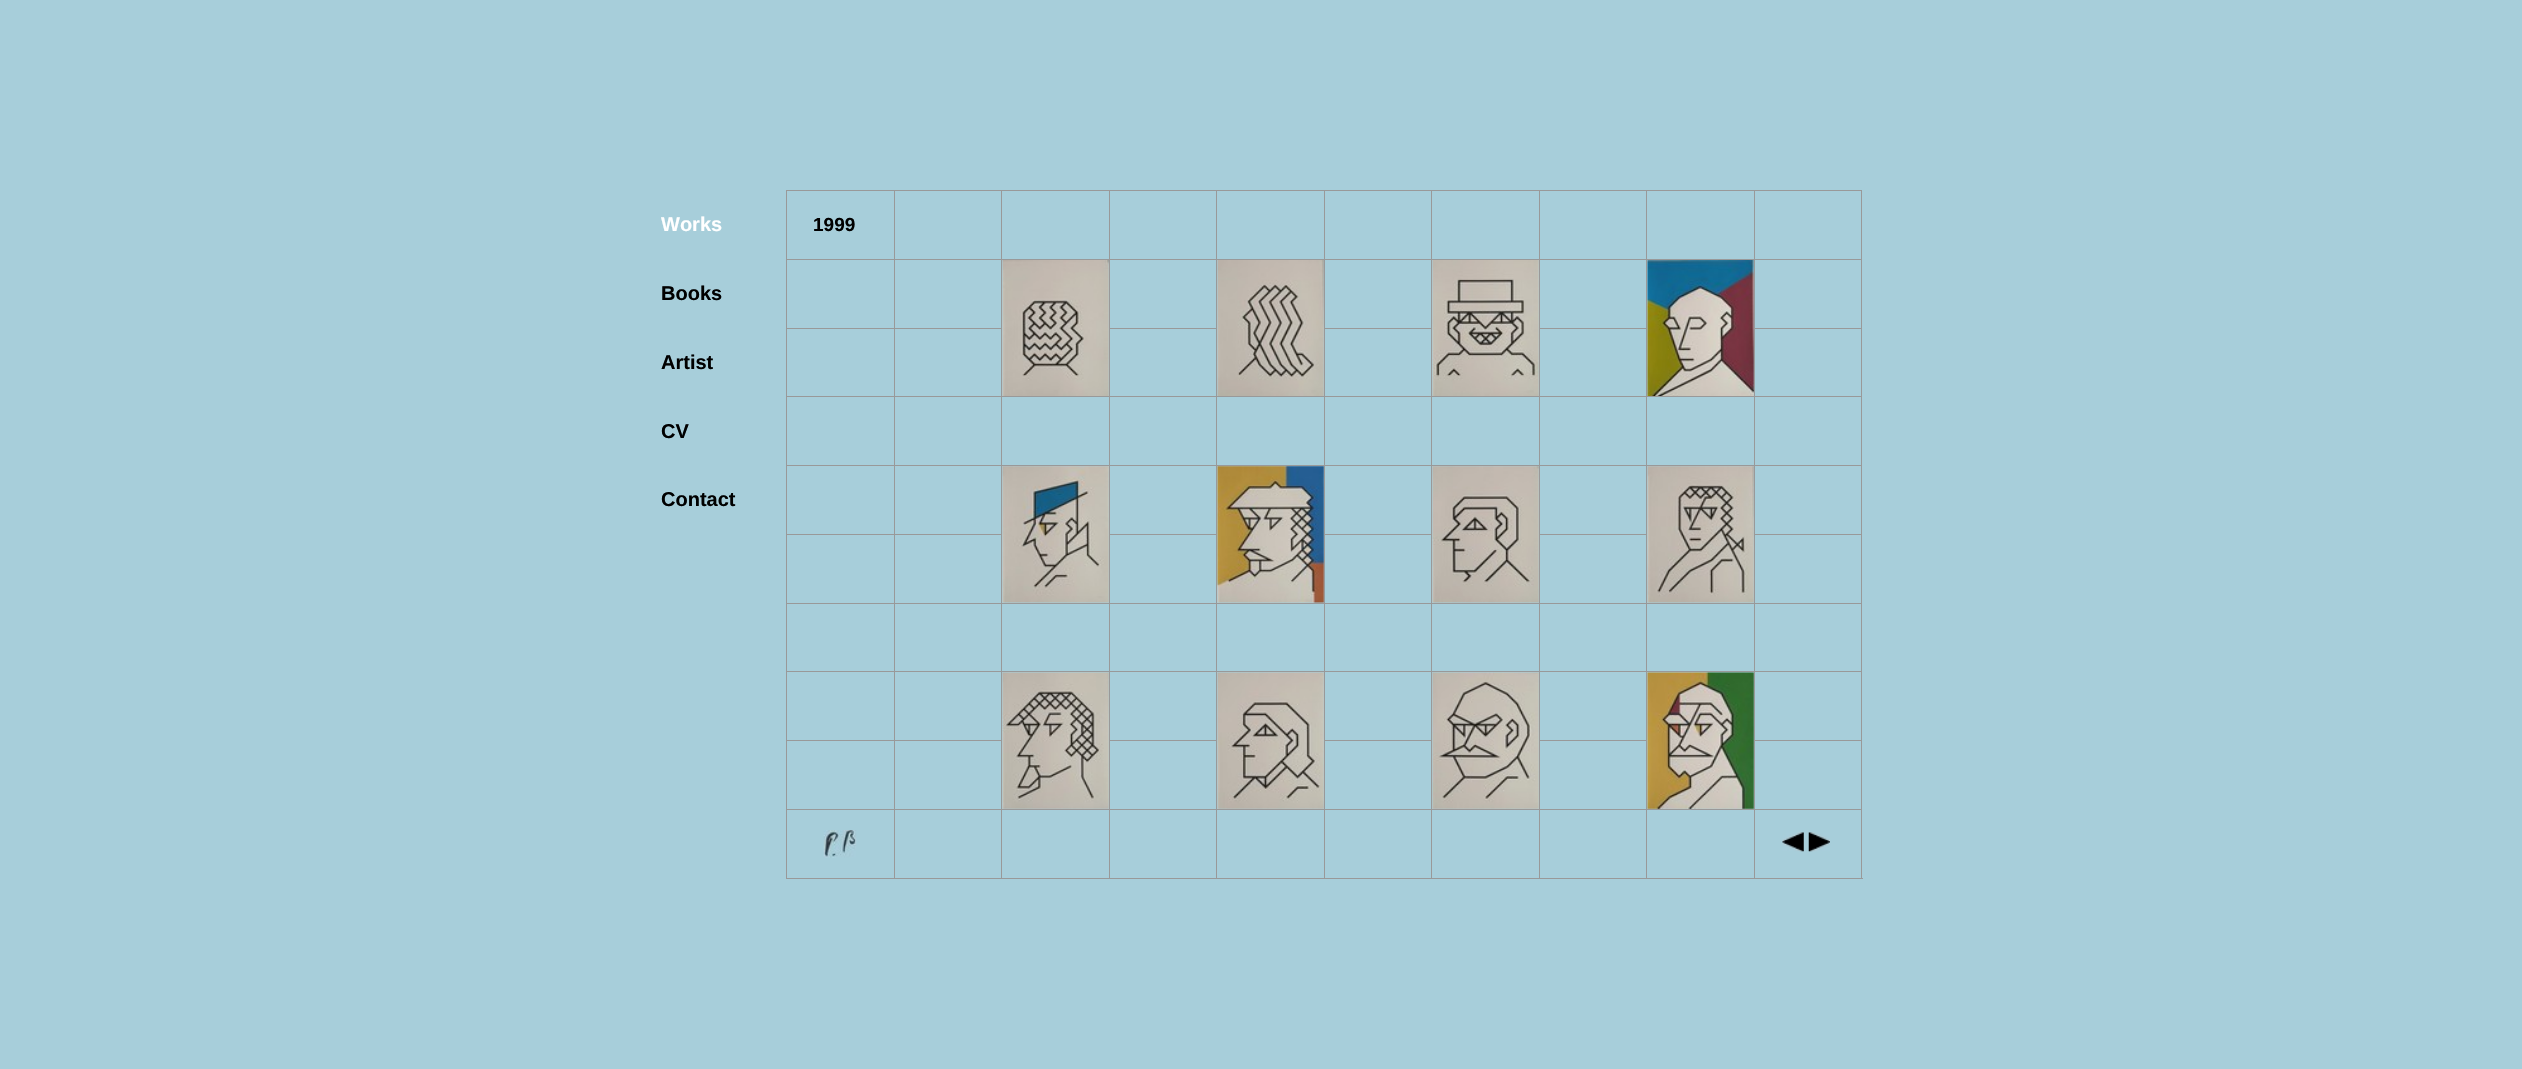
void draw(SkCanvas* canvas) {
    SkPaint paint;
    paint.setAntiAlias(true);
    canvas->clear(0xFFA7CEDA);
    SkFont font1(fontMgr->matchFamilyStyle("Liberation Sans", SkFontStyle::Bold()), 20);
    font1.setSubpixel(true);
    paint.setColor(0xFFFFFFFF);
    canvas->drawString("Works", 661, 231, font1, paint);
    paint.setColor(0xFF000000);
    canvas->drawString("Books", 661, 300, font1, paint);
    canvas->drawString("Artist", 661, 369, font1, paint);
    canvas->drawString("CV", 661, 438, font1, paint);
    canvas->drawString("Contact", 661, 506, font1, paint);
    paint.setColor(0xFF999999);
    canvas->drawRect(SkRect::MakeXYWH(1861, 190, 1, 689), paint);
    canvas->drawRect(SkRect::MakeXYWH(786, 878, 1077, 1), paint);
    canvas->drawRect(SkRect::MakeXYWH(786, 190, 1075, 1), paint);
    canvas->drawRect(SkRect::MakeXYWH(786, 190, 1, 69), paint);
    SkFont font2(fontMgr->matchFamilyStyle("Liberation Sans", SkFontStyle::Bold()), 19);
    font2.setSubpixel(true);
    paint.setColor(0xFF000000);
    canvas->drawString("1999", 813, 231, font2, paint);
    paint.setColor(0xFF999999);
    canvas->drawRect(SkRect::MakeXYWH(894, 190, 1, 69), paint);
    canvas->drawRect(SkRect::MakeXYWH(1001, 190, 1, 69), paint);
    canvas->drawRect(SkRect::MakeXYWH(1109, 190, 1, 69), paint);
    canvas->drawRect(SkRect::MakeXYWH(1216, 190, 1, 69), paint);
    canvas->drawRect(SkRect::MakeXYWH(1324, 190, 1, 69), paint);
    canvas->drawRect(SkRect::MakeXYWH(1431, 190, 1, 69), paint);
    canvas->drawRect(SkRect::MakeXYWH(1539, 190, 1, 69), paint);
    canvas->drawRect(SkRect::MakeXYWH(1646, 190, 1, 69), paint);
    canvas->drawRect(SkRect::MakeXYWH(1754, 190, 1, 69), paint);
    canvas->drawRect(SkRect::MakeXYWH(786, 259, 1075, 1), paint);
    canvas->drawRect(SkRect::MakeXYWH(786, 259, 1, 69), paint);
    canvas->drawRect(SkRect::MakeXYWH(894, 259, 1, 69), paint);
    canvas->drawRect(SkRect::MakeXYWH(1001, 259, 1, 137), paint);
    canvas->drawImageRect(SkImages::DeferredFromEncodedData(SkData::MakeFromFileName("img1.png")), SkRect::MakeXYWH(1002, 260, 107, 136), SkSamplingOptions());
    canvas->drawRect(SkRect::MakeXYWH(1109, 259, 1, 69), paint);
    canvas->drawRect(SkRect::MakeXYWH(1216, 259, 1, 137), paint);
    canvas->drawImageRect(SkImages::DeferredFromEncodedData(SkData::MakeFromFileName("img2.png")), SkRect::MakeXYWH(1217, 260, 107, 136), SkSamplingOptions());
    canvas->drawRect(SkRect::MakeXYWH(1324, 259, 1, 69), paint);
    canvas->drawRect(SkRect::MakeXYWH(1431, 259, 1, 137), paint);
    canvas->drawImageRect(SkImages::DeferredFromEncodedData(SkData::MakeFromFileName("img3.png")), SkRect::MakeXYWH(1432, 260, 107, 136), SkSamplingOptions());
    canvas->drawRect(SkRect::MakeXYWH(1539, 259, 1, 69), paint);
    canvas->drawRect(SkRect::MakeXYWH(1646, 259, 1, 137), paint);
    canvas->drawImageRect(SkImages::DeferredFromEncodedData(SkData::MakeFromFileName("img4.png")), SkRect::MakeXYWH(1647, 260, 107, 136), SkSamplingOptions());
    canvas->drawRect(SkRect::MakeXYWH(1754, 259, 1, 69), paint);
    canvas->drawRect(SkRect::MakeXYWH(786, 328, 215, 1), paint);
    canvas->drawRect(SkRect::MakeXYWH(786, 328, 1, 68), paint);
    canvas->drawRect(SkRect::MakeXYWH(894, 328, 1, 68), paint);
    canvas->drawRect(SkRect::MakeXYWH(1109, 328, 107, 1), paint);
    canvas->drawRect(SkRect::MakeXYWH(1109, 328, 1, 68), paint);
    canvas->drawRect(SkRect::MakeXYWH(1324, 328, 107, 1), paint);
    canvas->drawRect(SkRect::MakeXYWH(1324, 328, 1, 68), paint);
    canvas->drawRect(SkRect::MakeXYWH(1539, 328, 107, 1), paint);
    canvas->drawRect(SkRect::MakeXYWH(1539, 328, 1, 68), paint);
    canvas->drawRect(SkRect::MakeXYWH(1754, 328, 107, 1), paint);
    canvas->drawRect(SkRect::MakeXYWH(1754, 328, 1, 68), paint);
    canvas->drawRect(SkRect::MakeXYWH(786, 396, 1075, 1), paint);
    canvas->drawRect(SkRect::MakeXYWH(786, 396, 1, 69), paint);
    canvas->drawRect(SkRect::MakeXYWH(894, 396, 1, 69), paint);
    canvas->drawRect(SkRect::MakeXYWH(1001, 396, 1, 69), paint);
    canvas->drawRect(SkRect::MakeXYWH(1109, 396, 1, 69), paint);
    canvas->drawRect(SkRect::MakeXYWH(1216, 396, 1, 69), paint);
    canvas->drawRect(SkRect::MakeXYWH(1324, 396, 1, 69), paint);
    canvas->drawRect(SkRect::MakeXYWH(1431, 396, 1, 69), paint);
    canvas->drawRect(SkRect::MakeXYWH(1539, 396, 1, 69), paint);
    canvas->drawRect(SkRect::MakeXYWH(1646, 396, 1, 69), paint);
    canvas->drawRect(SkRect::MakeXYWH(1754, 396, 1, 69), paint);
    canvas->drawRect(SkRect::MakeXYWH(786, 465, 1075, 1), paint);
    canvas->drawRect(SkRect::MakeXYWH(786, 465, 1, 69), paint);
    canvas->drawRect(SkRect::MakeXYWH(894, 465, 1, 69), paint);
    canvas->drawRect(SkRect::MakeXYWH(1001, 465, 1, 138), paint);
    canvas->drawImageRect(SkImages::DeferredFromEncodedData(SkData::MakeFromFileName("img5.png")), SkRect::MakeXYWH(1002, 466, 107, 137), SkSamplingOptions());
    canvas->drawRect(SkRect::MakeXYWH(1109, 465, 1, 69), paint);
    canvas->drawRect(SkRect::MakeXYWH(1216, 465, 1, 138), paint);
    canvas->drawImageRect(SkImages::DeferredFromEncodedData(SkData::MakeFromFileName("img6.png")), SkRect::MakeXYWH(1217, 466, 107, 137), SkSamplingOptions());
    canvas->drawRect(SkRect::MakeXYWH(1324, 465, 1, 69), paint);
    canvas->drawRect(SkRect::MakeXYWH(1431, 465, 1, 138), paint);
    canvas->drawImageRect(SkImages::DeferredFromEncodedData(SkData::MakeFromFileName("img7.png")), SkRect::MakeXYWH(1432, 466, 107, 137), SkSamplingOptions());
    canvas->drawRect(SkRect::MakeXYWH(1539, 465, 1, 69), paint);
    canvas->drawRect(SkRect::MakeXYWH(1646, 465, 1, 138), paint);
    canvas->drawImageRect(SkImages::DeferredFromEncodedData(SkData::MakeFromFileName("img8.png")), SkRect::MakeXYWH(1647, 466, 107, 137), SkSamplingOptions());
    canvas->drawRect(SkRect::MakeXYWH(1754, 465, 1, 69), paint);
    canvas->drawRect(SkRect::MakeXYWH(786, 534, 215, 1), paint);
    canvas->drawRect(SkRect::MakeXYWH(786, 534, 1, 69), paint);
    canvas->drawRect(SkRect::MakeXYWH(894, 534, 1, 69), paint);
    canvas->drawRect(SkRect::MakeXYWH(1109, 534, 107, 1), paint);
    canvas->drawRect(SkRect::MakeXYWH(1109, 534, 1, 69), paint);
    canvas->drawRect(SkRect::MakeXYWH(1324, 534, 107, 1), paint);
    canvas->drawRect(SkRect::MakeXYWH(1324, 534, 1, 69), paint);
    canvas->drawRect(SkRect::MakeXYWH(1539, 534, 107, 1), paint);
    canvas->drawRect(SkRect::MakeXYWH(1539, 534, 1, 69), paint);
    canvas->drawRect(SkRect::MakeXYWH(1754, 534, 107, 1), paint);
    canvas->drawRect(SkRect::MakeXYWH(1754, 534, 1, 69), paint);
    canvas->drawRect(SkRect::MakeXYWH(786, 603, 1075, 1), paint);
    canvas->drawRect(SkRect::MakeXYWH(786, 603, 1, 68), paint);
    canvas->drawRect(SkRect::MakeXYWH(894, 603, 1, 68), paint);
    canvas->drawRect(SkRect::MakeXYWH(1001, 603, 1, 68), paint);
    canvas->drawRect(SkRect::MakeXYWH(1109, 603, 1, 68), paint);
    canvas->drawRect(SkRect::MakeXYWH(1216, 603, 1, 68), paint);
    canvas->drawRect(SkRect::MakeXYWH(1324, 603, 1, 68), paint);
    canvas->drawRect(SkRect::MakeXYWH(1431, 603, 1, 68), paint);
    canvas->drawRect(SkRect::MakeXYWH(1539, 603, 1, 68), paint);
    canvas->drawRect(SkRect::MakeXYWH(1646, 603, 1, 68), paint);
    canvas->drawRect(SkRect::MakeXYWH(1754, 603, 1, 68), paint);
    canvas->drawRect(SkRect::MakeXYWH(786, 671, 1075, 1), paint);
    canvas->drawRect(SkRect::MakeXYWH(786, 671, 1, 69), paint);
    canvas->drawRect(SkRect::MakeXYWH(894, 671, 1, 69), paint);
    canvas->drawRect(SkRect::MakeXYWH(1001, 671, 1, 138), paint);
    canvas->drawImageRect(SkImages::DeferredFromEncodedData(SkData::MakeFromFileName("img9.png")), SkRect::MakeXYWH(1002, 672, 107, 137), SkSamplingOptions());
    canvas->drawRect(SkRect::MakeXYWH(1109, 671, 1, 69), paint);
    canvas->drawRect(SkRect::MakeXYWH(1216, 671, 1, 138), paint);
    canvas->drawImageRect(SkImages::DeferredFromEncodedData(SkData::MakeFromFileName("img10.png")), SkRect::MakeXYWH(1217, 672, 107, 137), SkSamplingOptions());
    canvas->drawRect(SkRect::MakeXYWH(1324, 671, 1, 69), paint);
    canvas->drawRect(SkRect::MakeXYWH(1431, 671, 1, 138), paint);
    canvas->drawImageRect(SkImages::DeferredFromEncodedData(SkData::MakeFromFileName("img11.png")), SkRect::MakeXYWH(1432, 672, 107, 137), SkSamplingOptions());
    canvas->drawRect(SkRect::MakeXYWH(1539, 671, 1, 69), paint);
    canvas->drawRect(SkRect::MakeXYWH(1646, 671, 1, 138), paint);
    canvas->drawImageRect(SkImages::DeferredFromEncodedData(SkData::MakeFromFileName("img12.png")), SkRect::MakeXYWH(1647, 672, 107, 137), SkSamplingOptions());
    canvas->drawRect(SkRect::MakeXYWH(1754, 671, 1, 69), paint);
    canvas->drawRect(SkRect::MakeXYWH(786, 740, 215, 1), paint);
    canvas->drawRect(SkRect::MakeXYWH(786, 740, 1, 69), paint);
    canvas->drawRect(SkRect::MakeXYWH(894, 740, 1, 69), paint);
    canvas->drawRect(SkRect::MakeXYWH(1109, 740, 107, 1), paint);
    canvas->drawRect(SkRect::MakeXYWH(1109, 740, 1, 69), paint);
    canvas->drawRect(SkRect::MakeXYWH(1324, 740, 107, 1), paint);
    canvas->drawRect(SkRect::MakeXYWH(1324, 740, 1, 69), paint);
    canvas->drawRect(SkRect::MakeXYWH(1539, 740, 107, 1), paint);
    canvas->drawRect(SkRect::MakeXYWH(1539, 740, 1, 69), paint);
    canvas->drawRect(SkRect::MakeXYWH(1754, 740, 107, 1), paint);
    canvas->drawRect(SkRect::MakeXYWH(1754, 740, 1, 69), paint);
    canvas->drawRect(SkRect::MakeXYWH(786, 809, 1075, 1), paint);
    canvas->drawRect(SkRect::MakeXYWH(786, 809, 1, 69), paint);
    canvas->drawRect(SkRect::MakeXYWH(894, 809, 1, 69), paint);
    canvas->drawRect(SkRect::MakeXYWH(1001, 809, 1, 69), paint);
    canvas->drawRect(SkRect::MakeXYWH(1109, 809, 1, 69), paint);
    canvas->drawRect(SkRect::MakeXYWH(1216, 809, 1, 69), paint);
    canvas->drawRect(SkRect::MakeXYWH(1324, 809, 1, 69), paint);
    canvas->drawRect(SkRect::MakeXYWH(1431, 809, 1, 69), paint);
    canvas->drawRect(SkRect::MakeXYWH(1539, 809, 1, 69), paint);
    canvas->drawRect(SkRect::MakeXYWH(1646, 809, 1, 69), paint);
    canvas->drawRect(SkRect::MakeXYWH(1754, 809, 1, 69), paint);
    canvas->drawImageRect(SkImages::DeferredFromEncodedData(SkData::MakeFromFileName("img13.png")), SkRect::MakeXYWH(1782, 832, 22, 20), SkSamplingOptions());
    canvas->drawImageRect(SkImages::DeferredFromEncodedData(SkData::MakeFromFileName("img14.png")), SkRect::MakeXYWH(1808, 832, 22, 20), SkSamplingOptions());
    canvas->drawImageRect(SkImages::DeferredFromEncodedData(SkData::MakeFromFileName("img15.png")), SkRect::MakeXYWH(823, 830, 34, 28), SkSamplingOptions());
}
